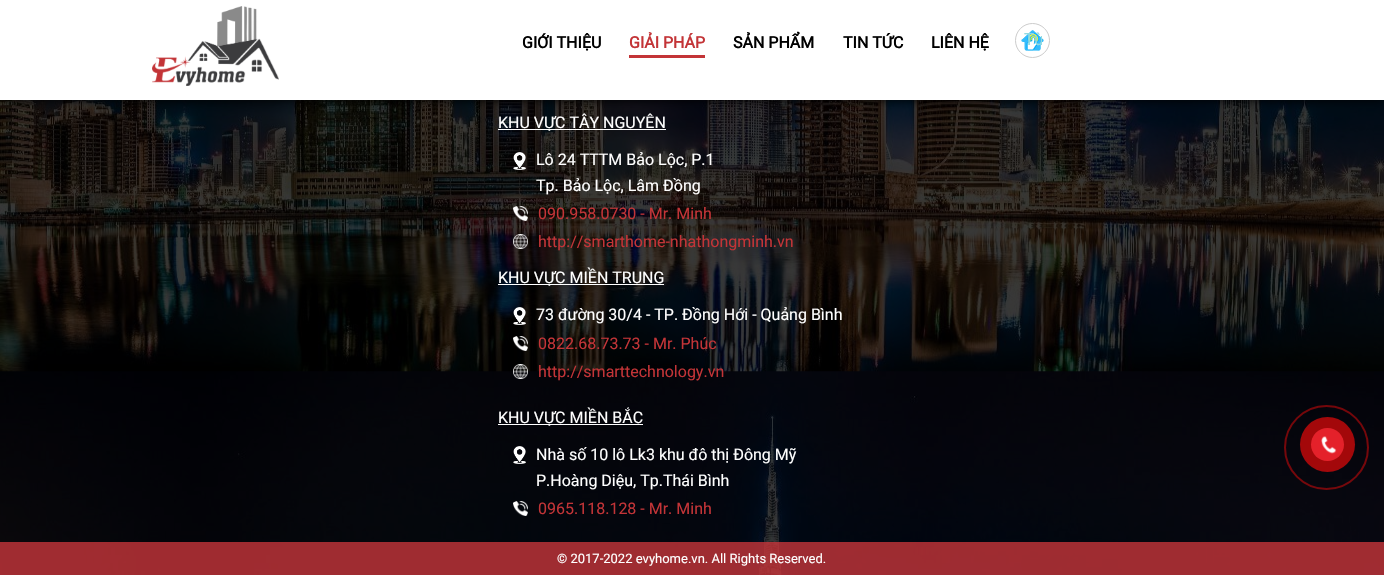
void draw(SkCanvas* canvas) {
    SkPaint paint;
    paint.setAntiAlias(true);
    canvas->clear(0xFFFFFFFF);
    canvas->drawImageRect(SkImages::DeferredFromEncodedData(SkData::MakeFromFileName("img3.png")), SkRect::MakeXYWH(0, 100, 1384, 475), SkSamplingOptions());
    paint.setColor(0xFF000000);
    paint.setMaskFilter(SkMaskFilter::MakeBlur(kNormal_SkBlurStyle, 5));
    canvas->drawRect(SkRect::MakeXYWH(0, 0, 1384, 100), paint);
    paint.setMaskFilter(nullptr);
    paint.setColor(0xFFFFFFFF);
    canvas->drawRect(SkRect::MakeXYWH(0, 0, 1384, 100), paint);
    canvas->drawImageRect(SkImages::DeferredFromEncodedData(SkData::MakeFromFileName("img1.png")), SkRect::MakeXYWH(152, 6, 127, 80), SkSamplingOptions());
    SkFont font1(fontMgr->matchFamilyStyle("Roboto", SkFontStyle::Bold()), 16);
    font1.setSubpixel(true);
    paint.setColor(0xFF000000);
    canvas->drawString("GIỚI THIỆU", 522, 48, font1, paint);
    paint.setColor(0xFFC33437);
    canvas->drawRect(SkRect::MakeXYWH(629, 55, 76, 3), paint);
    canvas->drawString("GIẢI PHÁP", 629, 48, font1, paint);
    paint.setColor(0xFF000000);
    canvas->drawString("SẢN PHẨM", 733, 48, font1, paint);
    canvas->drawString("TIN TỨC", 843, 48, font1, paint);
    canvas->drawString("LIÊN HỆ", 931, 48, font1, paint);
    canvas->drawImageRect(SkImages::DeferredFromEncodedData(SkData::MakeFromFileName("img2.png")), SkRect::MakeXYWH(1021, 30, 23, 21), SkSamplingOptions());
    paint.setStyle(SkPaint::kStroke_Style);
    paint.setStrokeWidth(1);
    paint.setColor(0xFFCCCCCC);
    canvas->drawCircle(1032.5f, 40.5f, 17, paint);
    canvas->save();
    canvas->clipRect(SkRect::MakeXYWH(1024, 29, 18, 20));
    SkFont font2(fontMgr->matchFamilyStyle("Roboto", SkFontStyle::Normal()), 17);
    font2.setSubpixel(true);
    paint.setStyle(SkPaint::kFill_Style);
    paint.setColor(0xFF91DAE0);
    canvas->drawString("Từ", 1024, 45, font2, paint);
    canvas->restore();
    paint.setColor(0xFFFFFFFF);
    canvas->drawRect(SkRect::MakeXYWH(498, 129, 168, 1), paint);
    SkFont font3(fontMgr->matchFamilyStyle("Roboto", SkFontStyle::Normal()), 16);
    font3.setSubpixel(true);
    canvas->drawString("KHU VỰC TÂY NGUYÊN", 498, 128, font3, paint);
    canvas->drawImageRect(SkImages::DeferredFromEncodedData(SkData::MakeFromFileName("img4.png")), SkRect::MakeXYWH(513, 152, 13, 18), SkSamplingOptions());
    canvas->drawString("Lô 24 TTTM Bảo Lộc, P.1", 536, 165, font3, paint);
    canvas->drawString("Tp. Bảo Lộc, Lâm Đồng", 536, 191, font3, paint);
    canvas->drawImageRect(SkImages::DeferredFromEncodedData(SkData::MakeFromFileName("img5.png")), SkRect::MakeXYWH(513, 206, 15, 15), SkSamplingOptions());
    paint.setColor(0xFFC33437);
    canvas->drawString("090.958.0730 - Mr. Minh", 538, 219, font3, paint);
    canvas->drawImageRect(SkImages::DeferredFromEncodedData(SkData::MakeFromFileName("img6.png")), SkRect::MakeXYWH(513, 234, 15, 15), SkSamplingOptions());
    canvas->drawString("http://smarthome-nhathongminh.vn", 538, 247, font3, paint);
    paint.setColor(0xFFFFFFFF);
    canvas->drawRect(SkRect::MakeXYWH(498, 284, 166, 1), paint);
    canvas->drawString("KHU VỰC MIỀN TRUNG", 498, 283, font3, paint);
    canvas->drawImageRect(SkImages::DeferredFromEncodedData(SkData::MakeFromFileName("img7.png")), SkRect::MakeXYWH(513, 307, 13, 18), SkSamplingOptions());
    canvas->drawString("73 đường 30/4 - TP. Đồng Hới - Quảng Bình", 536, 320, font3, paint);
    canvas->drawImageRect(SkImages::DeferredFromEncodedData(SkData::MakeFromFileName("img8.png")), SkRect::MakeXYWH(513, 336, 15, 15), SkSamplingOptions());
    paint.setColor(0xFFC33437);
    canvas->drawString("0822.68.73.73 - Mr. Phúc", 538, 349, font3, paint);
    canvas->drawImageRect(SkImages::DeferredFromEncodedData(SkData::MakeFromFileName("img9.png")), SkRect::MakeXYWH(513, 364, 15, 15), SkSamplingOptions());
    canvas->drawString("http://smarttechnology.vn", 538, 377, font3, paint);
    paint.setColor(0xFFFFFFFF);
    canvas->drawRect(SkRect::MakeXYWH(498, 424, 145, 1), paint);
    canvas->drawString("KHU VỰC MIỀN BẮC", 498, 423, font3, paint);
    canvas->drawImageRect(SkImages::DeferredFromEncodedData(SkData::MakeFromFileName("img10.png")), SkRect::MakeXYWH(513, 446, 13, 18), SkSamplingOptions());
    canvas->drawString("Nhà số 10 lô Lk3 khu đô thị Đông Mỹ", 536, 460, font3, paint);
    canvas->drawString("P.Hoàng Diệu, Tp.Thái Bình", 536, 486, font3, paint);
    canvas->drawImageRect(SkImages::DeferredFromEncodedData(SkData::MakeFromFileName("img11.png")), SkRect::MakeXYWH(513, 501, 15, 15), SkSamplingOptions());
    paint.setColor(0xFFC33437);
    canvas->drawString("0965.118.128 - Mr. Minh", 538, 514, font3, paint);
    paint.setColor(0xCFC33439);
    canvas->drawRect(SkRect::MakeXYWH(0, 542, 1384, 33), paint);
    SkFont font4(fontMgr->matchFamilyStyle("Roboto", SkFontStyle::Normal()), 13);
    font4.setSubpixel(true);
    paint.setColor(0xFFFFFFFF);
    canvas->drawString("© 2017-2022 evyhome.vn. All Rights Reserved.", 557, 563, font4, paint);
    paint.setStyle(SkPaint::kStroke_Style);
    paint.setStrokeWidth(2);
    paint.setColor(0x80E60808);
    canvas->drawCircle(1326.5f, 447.5f, 41.5f, paint);
    paint.setStyle(SkPaint::kFill_Style);
    paint.setColor(0xB3E60808);
    canvas->drawCircle(1327.5f, 444.5f, 27.5f, paint);
    paint.setColor(0xFFE4212A);
    canvas->drawCircle(1327.5f, 444.5f, 16.5f, paint);
    canvas->drawImageRect(SkImages::DeferredFromEncodedData(SkData::MakeFromFileName("img12.png")), SkRect::MakeXYWH(1321, 436, 16, 18), SkSamplingOptions());
}
